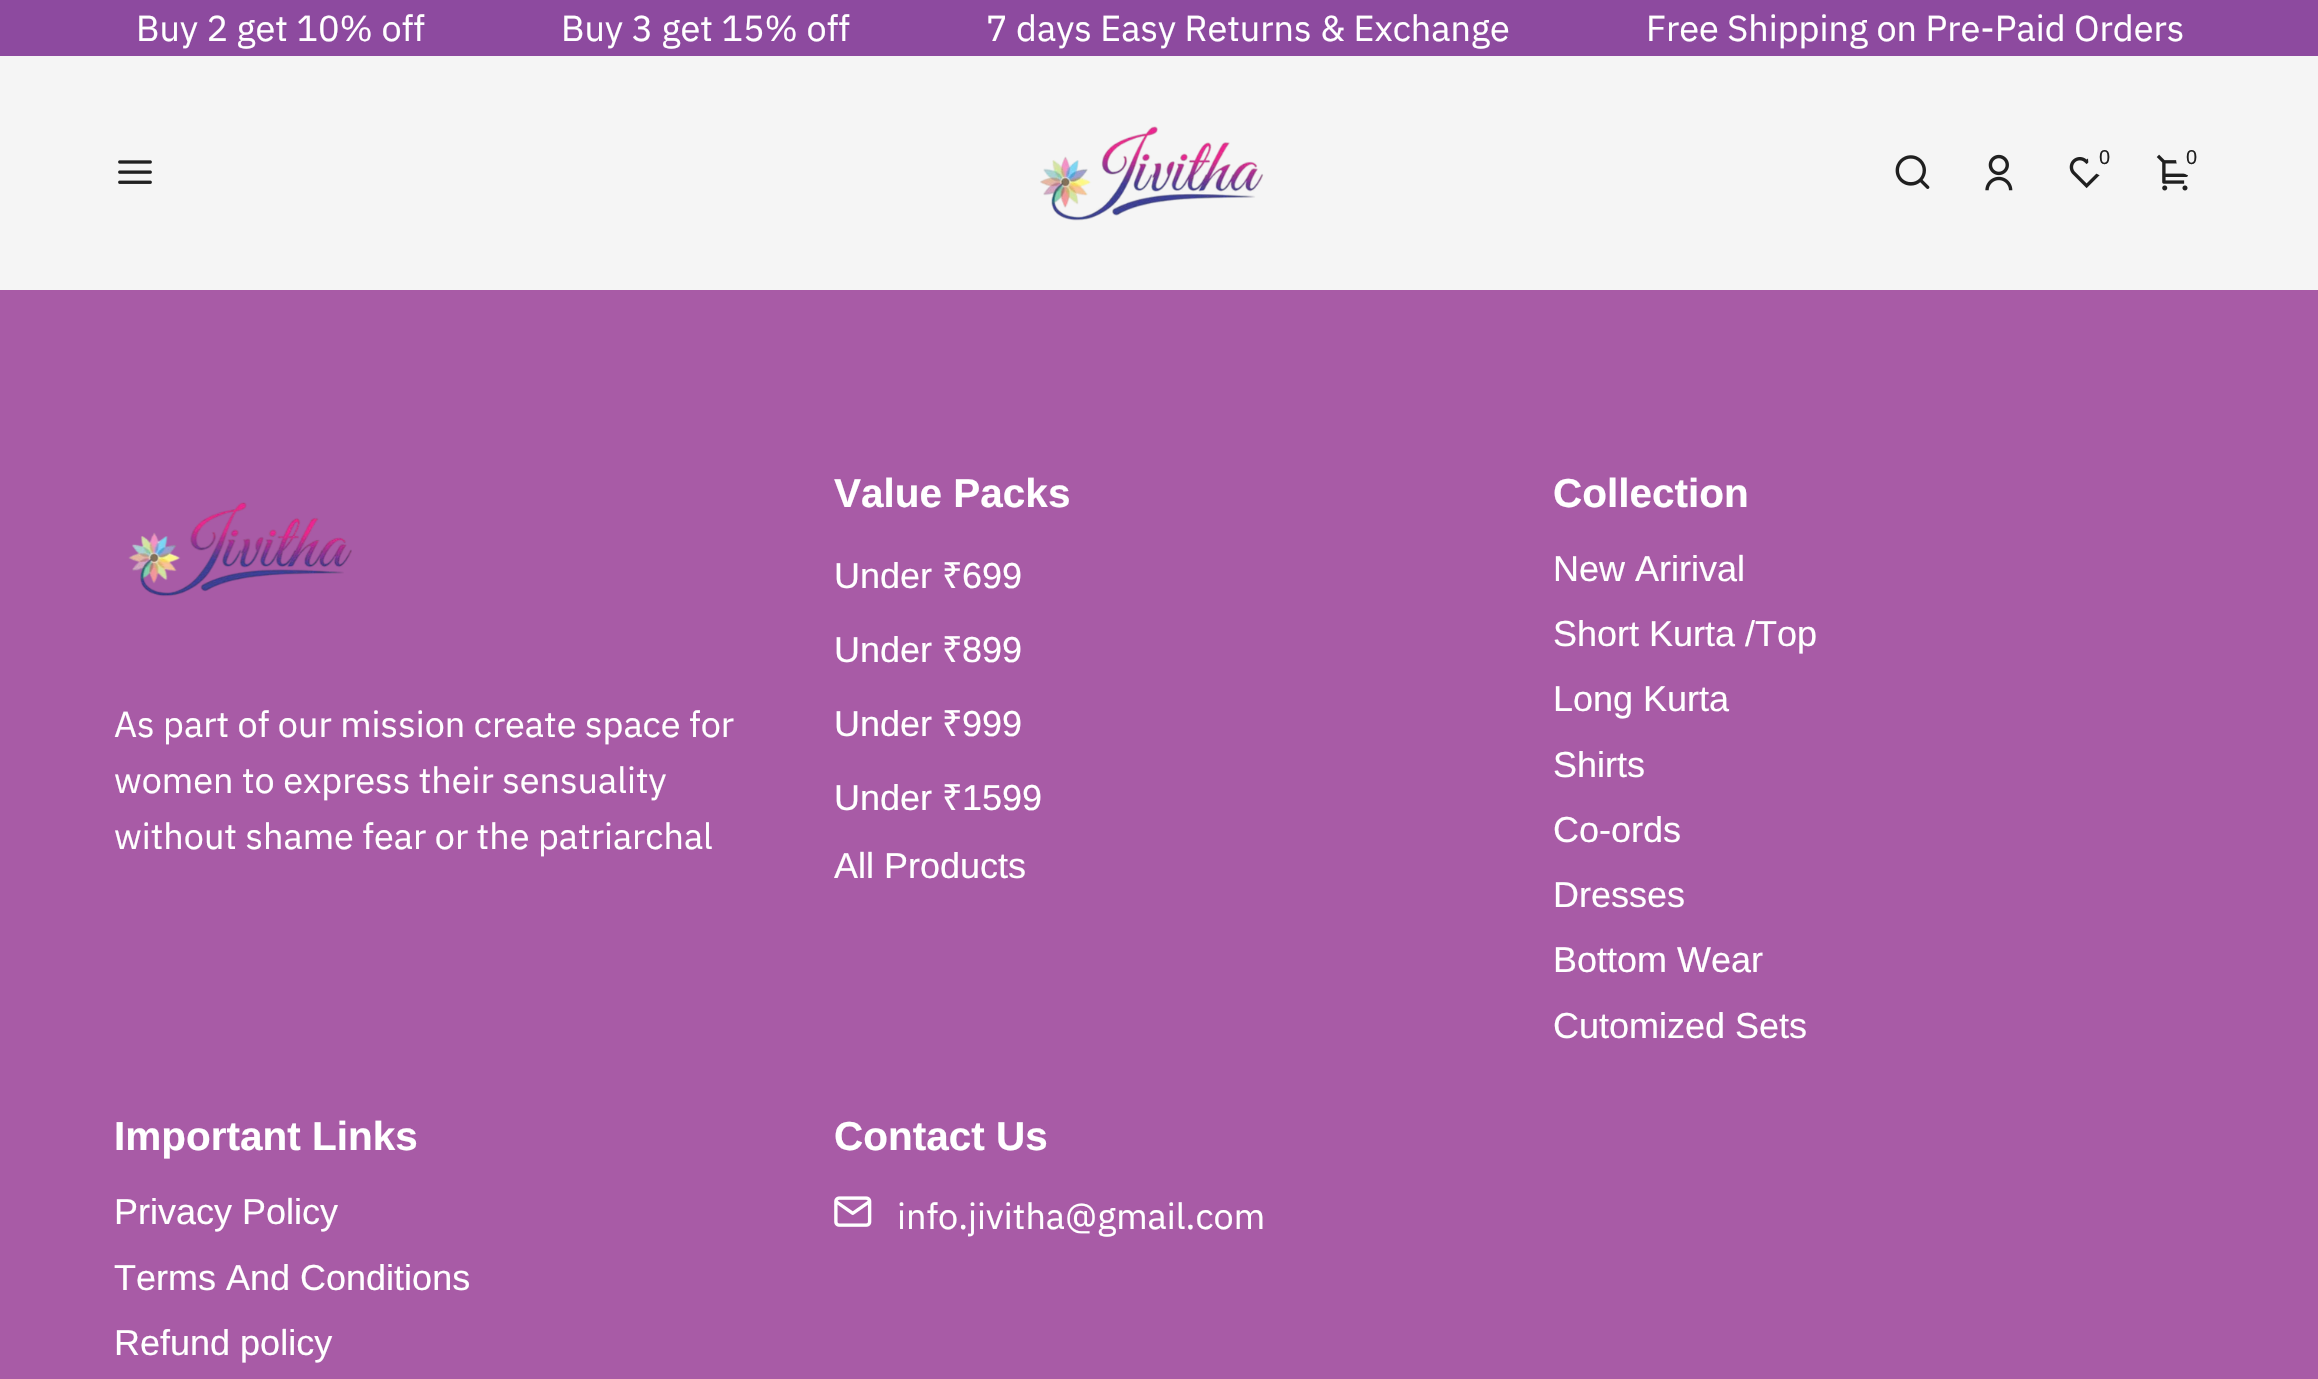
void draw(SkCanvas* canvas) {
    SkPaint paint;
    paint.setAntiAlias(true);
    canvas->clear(0xFFF5F5F5);
    paint.setColor(0xFF8D4A9F);
    canvas->drawRect(SkRect::MakeXYWH(0, 0, 2318, 56), paint);
    SkFont font1(fontMgr->matchFamilyStyle("IBM Plex Sans", SkFontStyle::Normal()), 36);
    font1.setSubpixel(true);
    paint.setColor(0xFFFFFFFF);
    canvas->drawString("Buy 2 get 10% off", 136, 41, font1, paint);
    canvas->drawString("Buy 3 get 15% off", 561, 41, font1, paint);
    canvas->drawString("7 days Easy Returns & Exchange", 986, 41, font1, paint);
    canvas->drawString("Free Shipping on Pre-Paid Orders", 1646, 41, font1, paint);
    canvas->drawImageRect(SkImages::DeferredFromEncodedData(SkData::MakeFromFileName("img1.png")), SkRect::MakeXYWH(1040, 126, 224, 95), SkSamplingOptions());
    canvas->drawImageRect(SkImages::DeferredFromEncodedData(SkData::MakeFromFileName("img2.png")), SkRect::MakeXYWH(1895, 155, 35, 34), SkSamplingOptions());
    canvas->drawImageRect(SkImages::DeferredFromEncodedData(SkData::MakeFromFileName("img3.png")), SkRect::MakeXYWH(1985, 154, 28, 37), SkSamplingOptions());
    canvas->drawImageRect(SkImages::DeferredFromEncodedData(SkData::MakeFromFileName("img4.png")), SkRect::MakeXYWH(2069, 157, 31, 32), SkSamplingOptions());
    paint.setColor(0xFFF5F5F5);
    canvas->drawCircle(2105, 159, 17, paint);
    SkFont font2(fontMgr->matchFamilyStyle("Liberation Sans", SkFontStyle::Normal()), 20);
    font2.setSubpixel(true);
    paint.setColor(0xFF202020);
    canvas->drawString("0", 2099, 164, font2, paint);
    canvas->drawImageRect(SkImages::DeferredFromEncodedData(SkData::MakeFromFileName("img5.png")), SkRect::MakeXYWH(2156, 154, 32, 37), SkSamplingOptions());
    paint.setColor(0xFFF5F5F5);
    canvas->drawCircle(2193, 159, 17, paint);
    paint.setColor(0xFF202020);
    canvas->drawString("0", 2186, 164, font2, paint);
    canvas->drawImageRect(SkImages::DeferredFromEncodedData(SkData::MakeFromFileName("img6.png")), SkRect::MakeXYWH(118, 160, 34, 24), SkSamplingOptions());
    paint.setColor(0xFFA85BA6);
    canvas->drawRect(SkRect::MakeXYWH(0, 290, 2318, 1089), paint);
    canvas->drawImageRect(SkImages::DeferredFromEncodedData(SkData::MakeFromFileName("img7.png")), SkRect::MakeXYWH(128, 502, 224, 95), SkSamplingOptions());
    paint.setColor(0xFFFFFFFF);
    canvas->drawString("As part of our mission create space for", 114, 737, font1, paint);
    canvas->drawString("women to express their sensuality", 114, 793, font1, paint);
    canvas->drawString("without shame fear or the patriarchal", 114, 849, font1, paint);
    SkFont font3(fontMgr->matchFamilyStyle("Liberation Sans", SkFontStyle::Bold()), 40.5f);
    font3.setSubpixel(true);
    canvas->drawString("Value Packs", 834, 507, font3, paint);
    SkFont font4(fontMgr->matchFamilyStyle("Liberation Sans", SkFontStyle::Normal()), 36);
    font4.setSubpixel(true);
    canvas->drawString("Under", 834, 588, font4, paint);
    SkFont font5(fontMgr->matchFamilyStyle("Noto Sans", SkFontStyle::Normal()), 36);
    font5.setSubpixel(true);
    canvas->drawString("₹", 942, 588, font5, paint);
    canvas->drawString("699", 962, 588, font4, paint);
    canvas->drawString("Under", 834, 662, font4, paint);
    canvas->drawString("₹", 942, 662, font5, paint);
    canvas->drawString("899", 962, 662, font4, paint);
    canvas->drawString("Under", 834, 736, font4, paint);
    canvas->drawString("₹", 942, 736, font5, paint);
    canvas->drawString("999", 962, 736, font4, paint);
    canvas->drawString("Under", 834, 810, font4, paint);
    canvas->drawString("₹", 942, 810, font5, paint);
    canvas->drawString("1599", 962, 810, font4, paint);
    canvas->drawString("All Products", 834, 878, font4, paint);
    canvas->drawString("Collection", 1553, 507, font3, paint);
    canvas->drawString("New Aririval", 1553, 581, font4, paint);
    canvas->drawString("Short Kurta /Top", 1553, 646, font4, paint);
    canvas->drawString("Long Kurta", 1553, 711, font4, paint);
    canvas->drawString("Shirts", 1553, 777, font4, paint);
    canvas->drawString("Co-ords", 1553, 842, font4, paint);
    canvas->drawString("Dresses", 1553, 907, font4, paint);
    canvas->drawString("Bottom Wear", 1553, 972, font4, paint);
    canvas->drawString("Cutomized Sets", 1553, 1038, font4, paint);
    canvas->drawString("Important Links", 114, 1150, font3, paint);
    canvas->drawString("Privacy Policy", 114, 1224, font4, paint);
    canvas->drawString("Terms And Conditions", 114, 1290, font4, paint);
    canvas->drawString("Refund policy", 114, 1355, font4, paint);
    canvas->drawString("Contact Us", 834, 1150, font3, paint);
    canvas->drawImageRect(SkImages::DeferredFromEncodedData(SkData::MakeFromFileName("img8.png")), SkRect::MakeXYWH(834, 1196, 38, 31), SkSamplingOptions());
    canvas->drawString("info.jivitha@gmail.com", 897, 1229, font1, paint);
}
